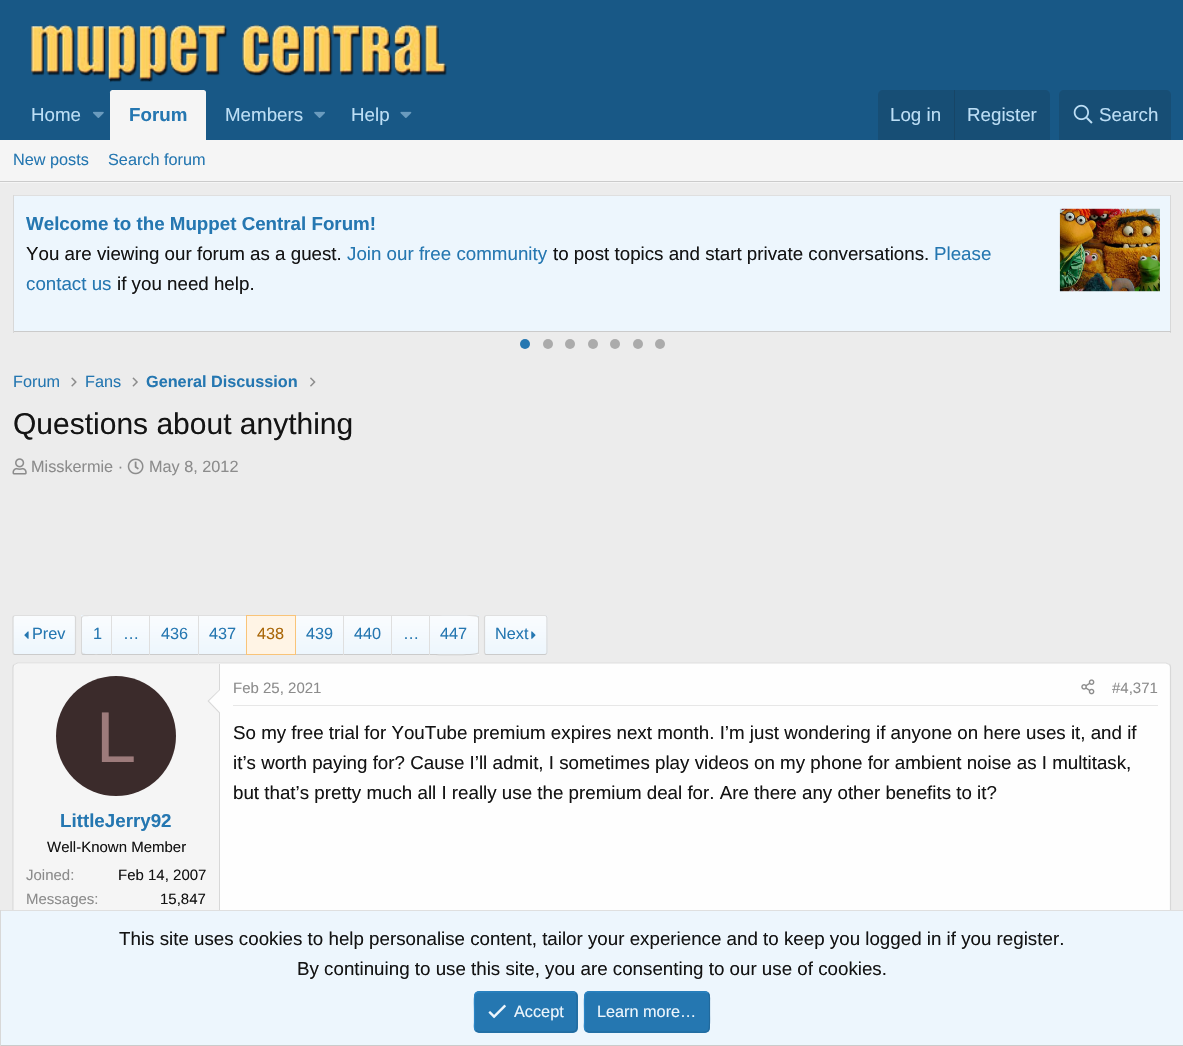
void draw(SkCanvas* canvas) {
    SkPaint paint;
    paint.setAntiAlias(true);
    canvas->clear(0xFFECECEC);
    paint.setColor(0xFF185886);
    canvas->drawRect(SkRect::MakeXYWH(0, 0, 1183, 140), paint);
    canvas->drawImageRect(SkImages::DeferredFromEncodedData(SkData::MakeFromFileName("img1.png")), SkRect::MakeXYWH(31, 24, 416, 59), SkSamplingOptions());
    SkFont font1(fontMgr->matchFamilyStyle("Liberation Sans", SkFontStyle::Normal()), 18.75f);
    font1.setSubpixel(true);
    paint.setColor(0xFFBCDEF5);
    canvas->drawString("Home", 31, 121, font1, paint);
    canvas->drawImageRect(SkImages::DeferredFromEncodedData(SkData::MakeFromFileName("img2.png")), SkRect::MakeXYWH(93, 111, 11, 7), SkSamplingOptions());
    paint.setColor(0xFFF5F5F5);
    canvas->drawPath(SkPathBuilder().moveTo(112.5f, 90).lineTo(203.5f, 90).cubicTo(205, 90, 206, 91, 206, 92.5f).lineTo(206, 140).lineTo(110, 140).lineTo(110, 92.5f).cubicTo(110, 91, 111, 90, 112.5f, 90).close().detach(), paint);
    SkFont font2(fontMgr->matchFamilyStyle("Liberation Sans", SkFontStyle::Bold()), 18.75f);
    font2.setSubpixel(true);
    paint.setColor(0xFF2577B1);
    canvas->drawString("Forum", 129, 121, font2, paint);
    paint.setColor(0xFFBCDEF5);
    canvas->drawString("Members", 225, 121, font1, paint);
    canvas->drawImageRect(SkImages::DeferredFromEncodedData(SkData::MakeFromFileName("img3.png")), SkRect::MakeXYWH(314, 111, 11, 7), SkSamplingOptions());
    canvas->drawString("Help", 351, 121, font1, paint);
    canvas->drawImageRect(SkImages::DeferredFromEncodedData(SkData::MakeFromFileName("img4.png")), SkRect::MakeXYWH(400, 111, 12, 7), SkSamplingOptions());
    paint.setColor(0xFF174E75);
    canvas->drawPath(SkPathBuilder().moveTo(883, 90).lineTo(1045, 90).cubicTo(1048, 90, 1050, 92, 1050, 95).lineTo(1050, 140).lineTo(878, 140).lineTo(878, 95).cubicTo(878, 92, 880, 90, 883, 90).close().detach(), paint);
    paint.setColor(0xFFBCDEF5);
    canvas->drawString("Log in", 890, 121, font1, paint);
    paint.setColor(0xFF174566);
    canvas->drawRect(SkRect::MakeXYWH(954, 90, 1, 50), paint);
    paint.setColor(0xFFBCDEF5);
    canvas->drawString("Register", 967, 121, font1, paint);
    paint.setColor(0xFF174E75);
    canvas->drawPath(SkPathBuilder().moveTo(1064, 90).lineTo(1166, 90).cubicTo(1169, 90, 1171, 92, 1171, 95).lineTo(1171, 140).lineTo(1059, 140).lineTo(1059, 95).cubicTo(1059, 92, 1061, 90, 1064, 90).close().detach(), paint);
    canvas->drawImageRect(SkImages::DeferredFromEncodedData(SkData::MakeFromFileName("img5.png")), SkRect::MakeXYWH(1073, 104, 20, 20), SkSamplingOptions());
    paint.setColor(0xFFBCDEF5);
    canvas->drawString("Search", 1099, 121, font1, paint);
    paint.setColor(0xFFF5F5F5);
    canvas->drawRect(SkRect::MakeXYWH(0, 140, 1183, 43), paint);
    paint.setColor(0xFFCBCBCB);
    canvas->drawRect(SkRect::MakeXYWH(0, 181, 1183, 1), paint);
    SkFont font3(fontMgr->matchFamilyStyle("Liberation Sans", SkFontStyle::Normal()), 16.25f);
    font3.setSubpixel(true);
    paint.setColor(0xFF2577B1);
    canvas->drawString("New posts", 13, 165, font3, paint);
    canvas->drawString("Search forum", 108, 165, font3, paint);
    paint.setColor(0xFFDFDFDF);
    canvas->drawRect(SkRect::MakeXYWH(13, 195, 1158, 1), paint);
    paint.setColor(0xFFD8D8D8);
    canvas->drawRect(SkRect::MakeXYWH(1170, 195, 1, 138), paint);
    paint.setColor(0xFFCBCBCB);
    canvas->drawRect(SkRect::MakeXYWH(13, 331, 1158, 1), paint);
    paint.setColor(0xFFD8D8D8);
    canvas->drawRect(SkRect::MakeXYWH(13, 195, 1, 138), paint);
    paint.setColor(0xFFEDF6FD);
    canvas->drawRect(SkRect::MakeXYWH(14, 196, 1156, 135), paint);
    paint.setColor(0xFF2577B1);
    canvas->drawString("Welcome to the Muppet Central Forum!", 26, 230, font2, paint);
    canvas->drawImageRect(SkImages::DeferredFromEncodedData(SkData::MakeFromFileName("img6.png")), SkRect::MakeXYWH(1059, 208, 101, 84), SkSamplingOptions());
    paint.setColor(0xFF141414);
    canvas->drawString("You are viewing our forum as a guest.", 26, 260, font1, paint);
    paint.setColor(0xFF2577B1);
    canvas->drawString("Join our free community", 347, 260, font1, paint);
    paint.setColor(0xFF141414);
    canvas->drawString("to post topics and start private conversations.", 553, 260, font1, paint);
    paint.setColor(0xFF2577B1);
    canvas->drawString("Please", 934, 260, font1, paint);
    canvas->drawString("contact us", 26, 290, font1, paint);
    paint.setColor(0xFF141414);
    canvas->drawString("if you need help.", 117, 290, font1, paint);
    paint.setColor(0xFF2577B1);
    canvas->drawCircle(525, 344, 5, paint);
    paint.setColor(0xFFABABAB);
    canvas->drawCircle(548, 344, 5, paint);
    canvas->drawCircle(570, 344, 5, paint);
    canvas->drawCircle(593, 344, 5, paint);
    canvas->drawCircle(615, 344, 5, paint);
    canvas->drawCircle(638, 344, 5, paint);
    canvas->drawCircle(660, 344, 5, paint);
    paint.setColor(0xFF2577B1);
    canvas->drawString("Forum", 13, 387, font3, paint);
    canvas->drawImageRect(SkImages::DeferredFromEncodedData(SkData::MakeFromFileName("img7.png")), SkRect::MakeXYWH(71, 377, 6, 10), SkSamplingOptions());
    canvas->drawString("Fans", 85, 387, font3, paint);
    canvas->drawImageRect(SkImages::DeferredFromEncodedData(SkData::MakeFromFileName("img8.png")), SkRect::MakeXYWH(132, 377, 6, 10), SkSamplingOptions());
    SkFont font4(fontMgr->matchFamilyStyle("Liberation Sans", SkFontStyle::Bold()), 16.25f);
    font4.setSubpixel(true);
    canvas->drawString("General Discussion", 146, 387, font4, paint);
    canvas->drawImageRect(SkImages::DeferredFromEncodedData(SkData::MakeFromFileName("img9.png")), SkRect::MakeXYWH(310, 377, 6, 10), SkSamplingOptions());
    SkFont font5(fontMgr->matchFamilyStyle("Liberation Sans", SkFontStyle::Normal()), 30);
    font5.setSubpixel(true);
    paint.setColor(0xFF141414);
    canvas->drawString("Questions about anything", 13, 434, font5, paint);
    canvas->drawImageRect(SkImages::DeferredFromEncodedData(SkData::MakeFromFileName("img10.png")), SkRect::MakeXYWH(12, 458, 15, 17), SkSamplingOptions());
    paint.setColor(0xFF8C8C8C);
    canvas->drawString("Misskermie ·", 31, 472, font3, paint);
    canvas->drawImageRect(SkImages::DeferredFromEncodedData(SkData::MakeFromFileName("img11.png")), SkRect::MakeXYWH(127, 458, 17, 17), SkSamplingOptions());
    canvas->drawString("May 8, 2012", 149, 472, font3, paint);
    canvas->save();
    canvas->clipPath(SkPathBuilder().moveTo(15.5f, 615).lineTo(73.5f, 615).cubicTo(75, 615, 76, 616, 76, 617.5f).lineTo(76, 652.5f).cubicTo(76, 654, 75, 655, 73.5f, 655).lineTo(15.5f, 655).cubicTo(14, 655, 13, 654, 13, 652.5f).lineTo(13, 617.5f).cubicTo(13, 616, 14, 615, 15.5f, 615).close().detach(), true);
    {
        const SkColor colors[] = {0xFFEDF6FD, 0xFFFAFCFE};
        const float stops[] = {0, 1};
        const SkPoint ends[] = {{44, 654}, {44, 616}};
        paint.setShader(SkGradientShader::MakeLinear(ends, colors, stops, 2, SkTileMode::kClamp));
        paint.setAlpha(255);
    }
    canvas->drawRect(SkRect::MakeXYWH(13, 616, 63, 38), paint);
    canvas->restore();
    paint.setStyle(SkPaint::kStroke_Style);
    paint.setStrokeWidth(1.2f);
    paint.setShader(nullptr);
    paint.setColor(0xFFDFDFDF);
    canvas->drawPath(SkPathBuilder().moveTo(13.5f, 616).lineTo(15, 615.5f).lineTo(74, 615.5f).lineTo(75, 616).detach(), paint);
    paint.setColor(0xFFD8D8D8);
    canvas->drawPath(SkPathBuilder().moveTo(75, 616).lineTo(75.5f, 617.5f).lineTo(75.5f, 652.5f).lineTo(75, 654).detach(), paint);
    paint.setColor(0xFFCBCBCB);
    canvas->drawPath(SkPathBuilder().moveTo(75, 654).lineTo(74, 654.5f).lineTo(15, 654.5f).lineTo(13.5f, 654).detach(), paint);
    paint.setColor(0xFFD8D8D8);
    canvas->drawPath(SkPathBuilder().moveTo(13.5f, 654).lineTo(13, 652.5f).lineTo(13, 617.5f).lineTo(13.5f, 616).detach(), paint);
    canvas->drawImageRect(SkImages::DeferredFromEncodedData(SkData::MakeFromFileName("img12.png")), SkRect::MakeXYWH(24, 631, 5, 8), SkSamplingOptions());
    paint.setStyle(SkPaint::kFill_Style);
    paint.setColor(0xFF2577B1);
    canvas->drawString("Prev", 32, 639, font3, paint);
    {
        const SkColor colors[] = {0xFFEDF6FD, 0xFFFAFCFE};
        const float stops[] = {0, 1};
        const SkPoint ends[] = {{97, 616}, {97, 579}};
        paint.setShader(SkGradientShader::MakeLinear(ends, colors, stops, 2, SkTileMode::kClamp));
        paint.setAlpha(255);
    }
    canvas->drawRect(SkRect::MakeXYWH(81, 615, 30, 1), paint);
    {
        const SkColor colors[] = {0xFFEDF6FD, 0xFFFAFCFE};
        const float stops[] = {0, 1};
        const SkPoint ends[] = {{97, 654}, {97, 616}};
        paint.setShader(SkGradientShader::MakeLinear(ends, colors, stops, 2, SkTileMode::kClamp));
        paint.setAlpha(255);
    }
    canvas->drawRect(SkRect::MakeXYWH(81, 616, 30, 38), paint);
    paint.setShader(nullptr);
    paint.setColor(0xFFDFDFDF);
    canvas->drawPath(SkPathBuilder().moveTo(84, 615).lineTo(82, 616).lineTo(83, 616.5f).cubicTo(84, 615.5f, 107.5f, 616, 111, 616).lineTo(111, 615).close().detach(), paint);
    paint.setColor(0xFFCBCBCB);
    canvas->drawPath(SkPathBuilder().moveTo(111, 655).lineTo(82, 655).lineTo(82, 654.5f).lineTo(83, 653.5f).cubicTo(84, 654.5f, 107.5f, 654, 111, 654).close().detach(), paint);
    paint.setColor(0xFFD8D8D8);
    canvas->drawPath(SkPathBuilder().moveTo(81, 617).lineTo(82, 616).lineTo(83, 616.5f).lineTo(82, 618).lineTo(82, 652).lineTo(83, 653.5f).lineTo(82, 654.5f).lineTo(81, 653.5f).close().detach(), paint);
    paint.setColor(0xFF2577B1);
    canvas->drawString("1", 93, 639, font3, paint);
    {
        const SkColor colors[] = {0xFFEDF6FD, 0xFFFAFCFE};
        const float stops[] = {0, 1};
        const SkPoint ends[] = {{131, 654}, {131, 616}};
        paint.setShader(SkGradientShader::MakeLinear(ends, colors, stops, 2, SkTileMode::kClamp));
        paint.setAlpha(255);
    }
    canvas->drawRect(SkRect::MakeXYWH(112, 616, 37, 38), paint);
    paint.setShader(nullptr);
    paint.setColor(0xFFDFDFDF);
    canvas->drawRect(SkRect::MakeXYWH(111, 615, 135, 1), paint);
    paint.setColor(0xFFCBCBCB);
    canvas->drawRect(SkRect::MakeXYWH(111, 654, 135, 1), paint);
    paint.setColor(0xFFDFDFDF);
    canvas->drawRect(SkRect::MakeXYWH(111, 615, 1, 40), paint);
    paint.setColor(0xFF2577B1);
    canvas->drawString("…", 123, 639, font3, paint);
    {
        const SkColor colors[] = {0xFFEDF6FD, 0xFFFAFCFE};
        const float stops[] = {0, 1};
        const SkPoint ends[] = {{174, 654}, {174, 616}};
        paint.setShader(SkGradientShader::MakeLinear(ends, colors, stops, 2, SkTileMode::kClamp));
        paint.setAlpha(255);
    }
    canvas->drawRect(SkRect::MakeXYWH(150, 616, 48, 38), paint);
    paint.setShader(nullptr);
    paint.setColor(0xFFDFDFDF);
    canvas->drawRect(SkRect::MakeXYWH(149, 615, 1, 40), paint);
    paint.setColor(0xFF2577B1);
    canvas->drawString("436", 161, 639, font3, paint);
    {
        const SkColor colors[] = {0xFFEDF6FD, 0xFFFAFCFE};
        const float stops[] = {0, 1};
        const SkPoint ends[] = {{223, 654}, {223, 616}};
        paint.setShader(SkGradientShader::MakeLinear(ends, colors, stops, 2, SkTileMode::kClamp));
        paint.setAlpha(255);
    }
    canvas->drawRect(SkRect::MakeXYWH(199, 616, 47, 38), paint);
    paint.setShader(nullptr);
    paint.setColor(0xFFDFDFDF);
    canvas->drawRect(SkRect::MakeXYWH(198, 615, 1, 40), paint);
    paint.setColor(0xFF2577B1);
    canvas->drawString("437", 209, 639, font3, paint);
    paint.setColor(0xFFFFF4E5);
    canvas->drawRect(SkRect::MakeXYWH(246.5f, 615.5f, 49, 39), paint);
    paint.setStyle(SkPaint::kStroke_Style);
    paint.setStrokeWidth(1);
    paint.setColor(0xFFF9C479);
    canvas->drawRect(SkRect::MakeXYWH(246.5f, 615.5f, 49, 39), paint);
    paint.setStyle(SkPaint::kFill_Style);
    paint.setColor(0xFFAA6709);
    canvas->drawString("438", 257, 639, font3, paint);
    {
        const SkColor colors[] = {0xFFEDF6FD, 0xFFFAFCFE};
        const float stops[] = {0, 1};
        const SkPoint ends[] = {{319, 654}, {319, 616}};
        paint.setShader(SkGradientShader::MakeLinear(ends, colors, stops, 2, SkTileMode::kClamp));
        paint.setAlpha(255);
    }
    canvas->drawRect(SkRect::MakeXYWH(296, 616, 47, 38), paint);
    paint.setShader(nullptr);
    paint.setColor(0xFFDFDFDF);
    canvas->drawRect(SkRect::MakeXYWH(296, 615, 133, 1), paint);
    paint.setColor(0xFFCBCBCB);
    canvas->drawRect(SkRect::MakeXYWH(296, 654, 133, 1), paint);
    paint.setColor(0xFF2577B1);
    canvas->drawString("439", 306, 639, font3, paint);
    {
        const SkColor colors[] = {0xFFEDF6FD, 0xFFFAFCFE};
        const float stops[] = {0, 1};
        const SkPoint ends[] = {{368, 654}, {368, 616}};
        paint.setShader(SkGradientShader::MakeLinear(ends, colors, stops, 2, SkTileMode::kClamp));
        paint.setAlpha(255);
    }
    canvas->drawRect(SkRect::MakeXYWH(344, 616, 47, 38), paint);
    paint.setShader(nullptr);
    paint.setColor(0xFFDFDFDF);
    canvas->drawRect(SkRect::MakeXYWH(343, 615, 1, 40), paint);
    paint.setColor(0xFF2577B1);
    canvas->drawString("440", 354, 639, font3, paint);
    {
        const SkColor colors[] = {0xFFEDF6FD, 0xFFFAFCFE};
        const float stops[] = {0, 1};
        const SkPoint ends[] = {{411, 654}, {411, 616}};
        paint.setShader(SkGradientShader::MakeLinear(ends, colors, stops, 2, SkTileMode::kClamp));
        paint.setAlpha(255);
    }
    canvas->drawRect(SkRect::MakeXYWH(392, 616, 37, 38), paint);
    paint.setShader(nullptr);
    paint.setColor(0xFFDFDFDF);
    canvas->drawRect(SkRect::MakeXYWH(391, 615, 1, 40), paint);
    paint.setColor(0xFF2577B1);
    canvas->drawString("…", 403, 639, font3, paint);
    {
        const SkColor colors[] = {0xFFEDF6FD, 0xFFFAFCFE};
        const float stops[] = {0, 1};
        const SkPoint ends[] = {{454, 616}, {454, 579}};
        paint.setShader(SkGradientShader::MakeLinear(ends, colors, stops, 2, SkTileMode::kClamp));
        paint.setAlpha(255);
    }
    canvas->drawRect(SkRect::MakeXYWH(429, 615, 50, 1), paint);
    {
        const SkColor colors[] = {0xFFEDF6FD, 0xFFFAFCFE};
        const float stops[] = {0, 1};
        const SkPoint ends[] = {{454, 654}, {454, 616}};
        paint.setShader(SkGradientShader::MakeLinear(ends, colors, stops, 2, SkTileMode::kClamp));
        paint.setAlpha(255);
    }
    canvas->drawRect(SkRect::MakeXYWH(430, 616, 49, 38), paint);
    {
        const SkColor colors[] = {0xFFEDF6FD, 0xFFFAFCFE};
        const float stops[] = {0, 1};
        const SkPoint ends[] = {{454, 691}, {454, 654}};
        paint.setShader(SkGradientShader::MakeLinear(ends, colors, stops, 2, SkTileMode::kClamp));
        paint.setAlpha(255);
    }
    canvas->drawRect(SkRect::MakeXYWH(429, 654, 50, 1), paint);
    paint.setShader(nullptr);
    paint.setColor(0xFFDFDFDF);
    canvas->drawPath(SkPathBuilder().moveTo(429, 615).lineTo(430, 616).cubicTo(435, 616, 476, 615, 477, 617).lineTo(478, 616).lineTo(476, 615).close().detach(), paint);
    paint.setColor(0xFFD8D8D8);
    canvas->drawPath(SkPathBuilder().moveTo(479, 653.5f).lineTo(478, 654.5f).lineTo(477, 653.5f).lineTo(478, 652).lineTo(478, 618).lineTo(477, 616.5f).lineTo(478, 615.5f).lineTo(479, 616.5f).close().detach(), paint);
    paint.setColor(0xFFCBCBCB);
    canvas->drawPath(SkPathBuilder().moveTo(429, 655).cubicTo(435, 655, 476, 656, 478, 654).lineTo(477, 653).cubicTo(476, 655, 435, 654, 430, 654).close().detach(), paint);
    paint.setColor(0xFFDFDFDF);
    canvas->drawPath(SkPathBuilder().moveTo(429, 615).lineTo(429, 655).lineTo(430, 654).lineTo(430, 616).close().detach(), paint);
    paint.setColor(0xFF2577B1);
    canvas->drawString("447", 440, 639, font3, paint);
    canvas->save();
    canvas->clipPath(SkPathBuilder().moveTo(486.5f, 615).lineTo(545.5f, 615).cubicTo(547, 615, 548, 616, 548, 617.5f).lineTo(548, 652.5f).cubicTo(548, 654, 547, 655, 545.5f, 655).lineTo(486.5f, 655).cubicTo(485, 655, 484, 654, 484, 652.5f).lineTo(484, 617.5f).cubicTo(484, 616, 485, 615, 486.5f, 615).close().detach(), true);
    {
        const SkColor colors[] = {0xFFEDF6FD, 0xFFFAFCFE};
        const float stops[] = {0, 1};
        const SkPoint ends[] = {{516, 616}, {516, 579}};
        paint.setShader(SkGradientShader::MakeLinear(ends, colors, stops, 2, SkTileMode::kClamp));
        paint.setAlpha(255);
    }
    canvas->drawRect(SkRect::MakeXYWH(484, 615, 64, 1), paint);
    {
        const SkColor colors[] = {0xFFEDF6FD, 0xFFFAFCFE};
        const float stops[] = {0, 1};
        const SkPoint ends[] = {{516, 654}, {516, 616}};
        paint.setShader(SkGradientShader::MakeLinear(ends, colors, stops, 2, SkTileMode::kClamp));
        paint.setAlpha(255);
    }
    canvas->drawRect(SkRect::MakeXYWH(484, 616, 64, 38), paint);
    {
        const SkColor colors[] = {0xFFEDF6FD, 0xFFFAFCFE};
        const float stops[] = {0, 1};
        const SkPoint ends[] = {{516, 691}, {516, 654}};
        paint.setShader(SkGradientShader::MakeLinear(ends, colors, stops, 2, SkTileMode::kClamp));
        paint.setAlpha(255);
    }
    canvas->drawRect(SkRect::MakeXYWH(484, 654, 64, 1), paint);
    canvas->restore();
    paint.setStyle(SkPaint::kStroke_Style);
    paint.setStrokeWidth(1.2f);
    paint.setShader(nullptr);
    paint.setColor(0xFFDFDFDF);
    canvas->drawPath(SkPathBuilder().moveTo(485, 616).lineTo(486, 615.5f).lineTo(545, 615.5f).lineTo(546.5f, 616).detach(), paint);
    paint.setColor(0xFFD8D8D8);
    canvas->drawPath(SkPathBuilder().moveTo(546.5f, 616).lineTo(547, 617.5f).lineTo(547, 652.5f).lineTo(546.5f, 654).detach(), paint);
    paint.setColor(0xFFCBCBCB);
    canvas->drawPath(SkPathBuilder().moveTo(546.5f, 654).lineTo(545, 654.5f).lineTo(486, 654.5f).lineTo(485, 654).detach(), paint);
    paint.setColor(0xFFD8D8D8);
    canvas->drawPath(SkPathBuilder().moveTo(485, 654).lineTo(484.5f, 652.5f).lineTo(484.5f, 617.5f).lineTo(485, 616).detach(), paint);
    paint.setStyle(SkPaint::kFill_Style);
    paint.setColor(0xFF2577B1);
    canvas->drawString("Next", 495, 639, font3, paint);
    canvas->drawImageRect(SkImages::DeferredFromEncodedData(SkData::MakeFromFileName("img13.png")), SkRect::MakeXYWH(531, 631, 5, 8), SkSamplingOptions());
    paint.setColor(0xFFFEFEFE);
    canvas->drawRoundRect(SkRect::MakeXYWH(13, 663, 1158, 287), 5, 5, paint);
    paint.setStyle(SkPaint::kStroke_Style);
    paint.setColor(0xFFDFDFDF);
    canvas->drawPath(SkPathBuilder().moveTo(14.5f, 664.5f).lineTo(17.5f, 663).lineTo(1166, 663).lineTo(1169.5f, 664.5f).detach(), paint);
    paint.setColor(0xFFD8D8D8);
    canvas->drawPath(SkPathBuilder().moveTo(1169.5f, 664.5f).cubicTo(1170, 665, 1170.5f, 666.5f, 1170.5f, 667.5f).lineTo(1170.5f, 945).cubicTo(1170.5f, 946, 1170, 947.5f, 1169.5f, 948).detach(), paint);
    canvas->drawPath(SkPathBuilder().moveTo(14.5f, 948).cubicTo(13.5f, 947.5f, 13, 946, 13, 945).lineTo(13, 667.5f).cubicTo(13, 666.5f, 13.5f, 665, 14.5f, 664.5f).detach(), paint);
    paint.setStyle(SkPaint::kFill_Style);
    paint.setColor(0xFFF5F5F5);
    canvas->drawPath(SkPathBuilder().moveTo(18, 664).lineTo(220, 664).lineTo(220, 949).lineTo(18, 949).cubicTo(16, 949, 14, 947, 14, 945).lineTo(14, 668).cubicTo(14, 666, 16, 664, 18, 664).close().detach(), paint);
    paint.setColor(0xFFD8D8D8);
    canvas->drawRect(SkRect::MakeXYWH(219, 664, 1, 246), paint);
    canvas->drawPath(SkPathBuilder().moveTo(220, 689).lineTo(220, 714).lineTo(207.5f, 701).close().detach(), paint);
    paint.setColor(0xFFFEFEFE);
    canvas->drawPath(SkPathBuilder().moveTo(220, 690).lineTo(220, 712.5f).lineTo(209, 701).close().detach(), paint);
    paint.setColor(0xFF3B2B2B);
    canvas->drawCircle(116, 736, 60, paint);
    SkFont font6(fontMgr->matchFamilyStyle("Liberation Sans", SkFontStyle::Normal()), 72);
    font6.setSubpixel(true);
    paint.setColor(0xFF9D7B7B);
    canvas->drawString("L", 96, 762, font6, paint);
    paint.setColor(0xFF2577B1);
    canvas->drawString("LittleJerry92", 60, 827, font2, paint);
    SkFont font7(fontMgr->matchFamilyStyle("Liberation Sans", SkFontStyle::Normal()), 15);
    font7.setSubpixel(true);
    paint.setColor(0xFF141414);
    canvas->drawString("Well-Known Member", 47, 852, font7, paint);
    paint.setColor(0xFF8C8C8C);
    canvas->drawString("Joined:", 26, 880, font7, paint);
    paint.setColor(0xFF141414);
    canvas->drawString("Feb 14, 2007", 118, 880, font7, paint);
    paint.setColor(0xFF8C8C8C);
    canvas->drawString("Messages:", 26, 904, font7, paint);
    paint.setColor(0xFF141414);
    canvas->drawString("15,847", 160, 904, font7, paint);
    paint.setColor(0xFFE7E7E7);
    canvas->drawRect(SkRect::MakeXYWH(233, 705, 925, 1), paint);
    paint.setColor(0xFF8C8C8C);
    canvas->drawString("Feb 25, 2021", 233, 693, font7, paint);
    canvas->drawImageRect(SkImages::DeferredFromEncodedData(SkData::MakeFromFileName("img14.png")), SkRect::MakeXYWH(1081, 679, 14, 16), SkSamplingOptions());
    canvas->drawString("#4,371", 1112, 693, font7, paint);
    paint.setColor(0xFF141414);
    canvas->drawString("So my free trial for YouTube premium expires next month. I’m just wondering if anyone on here uses it, and if", 233, 739, font1, paint);
    canvas->drawString("it’s worth paying for? Cause I’ll admit, I sometimes play videos on my phone for ambient noise as I multitask,", 233, 769, font1, paint);
    canvas->drawString("but that’s pretty much all I really use the premium deal for. Are there any other benefits to it?", 233, 799, font1, paint);
    paint.setColor(0xFFEDF6FD);
    canvas->drawRect(SkRect::MakeXYWH(1, 911, 1182, 134), paint);
    paint.setColor(0xFFDFDFDF);
    canvas->drawRect(SkRect::MakeXYWH(0, 910, 1183, 1), paint);
    paint.setColor(0xFFCBCBCB);
    canvas->drawRect(SkRect::MakeXYWH(0, 1045, 1183, 1), paint);
    paint.setColor(0xFFD8D8D8);
    canvas->drawRect(SkRect::MakeXYWH(0, 910, 1, 136), paint);
    paint.setColor(0xFF141414);
    canvas->drawString("This site uses cookies to help personalise content, tailor your experience and to keep you logged in if you register.", 119, 945, font1, paint);
    canvas->drawString("By continuing to use this site, you are consenting to our use of cookies.", 297, 975, font1, paint);
    paint.setColor(0xFF2577B1);
    canvas->drawRoundRect(SkRect::MakeXYWH(474, 991, 104, 42), 5, 5, paint);
    paint.setStyle(SkPaint::kStroke_Style);
    paint.setColor(0xFF21699C);
    canvas->drawPath(SkPathBuilder().moveTo(575.5f, 993).cubicTo(577.5f, 995, 577, 999, 577, 1001.5f).lineTo(577, 1012).cubicTo(577, 1035, 580.5f, 1032, 557, 1032).lineTo(479, 1032).lineTo(475.5f, 1030.5f).detach(), paint);
    paint.setColor(0xFF2985C6);
    canvas->drawPath(SkPathBuilder().moveTo(475.5f, 1030.5f).cubicTo(473.5f, 1028.5f, 474.5f, 1024.5f, 474.5f, 1022.5f).lineTo(474.5f, 1012).cubicTo(474.5f, 989, 470.5f, 992, 494.5f, 992).lineTo(572.5f, 992).lineTo(575.5f, 993).detach(), paint);
    canvas->drawImageRect(SkImages::DeferredFromEncodedData(SkData::MakeFromFileName("img15.png")), SkRect::MakeXYWH(488, 1004, 18, 15), SkSamplingOptions());
    paint.setStyle(SkPaint::kFill_Style);
    paint.setColor(0xFFEDF6FD);
    canvas->drawString("Accept", 514, 1017, font3, paint);
    paint.setColor(0xFF2577B1);
    canvas->drawRoundRect(SkRect::MakeXYWH(584, 991, 126, 42), 5, 5, paint);
    paint.setStyle(SkPaint::kStroke_Style);
    paint.setColor(0xFF21699C);
    canvas->drawPath(SkPathBuilder().moveTo(708, 993).cubicTo(710, 995, 709.5f, 999, 709.5f, 1001.5f).lineTo(709.5f, 1012).cubicTo(709.5f, 1036.5f, 712.5f, 1032, 685.5f, 1032).lineTo(589, 1032).lineTo(585.5f, 1030.5f).detach(), paint);
    paint.setColor(0xFF2985C6);
    canvas->drawPath(SkPathBuilder().moveTo(585.5f, 1030.5f).cubicTo(583.5f, 1028.5f, 584.5f, 1024.5f, 584.5f, 1022.5f).lineTo(584.5f, 1012).cubicTo(584.5f, 987.5f, 581, 992, 608, 992).lineTo(705, 992).lineTo(708, 993).detach(), paint);
    paint.setStyle(SkPaint::kFill_Style);
    paint.setColor(0xFFEDF6FD);
    canvas->drawString("Learn more…", 597, 1017, font3, paint);
}
